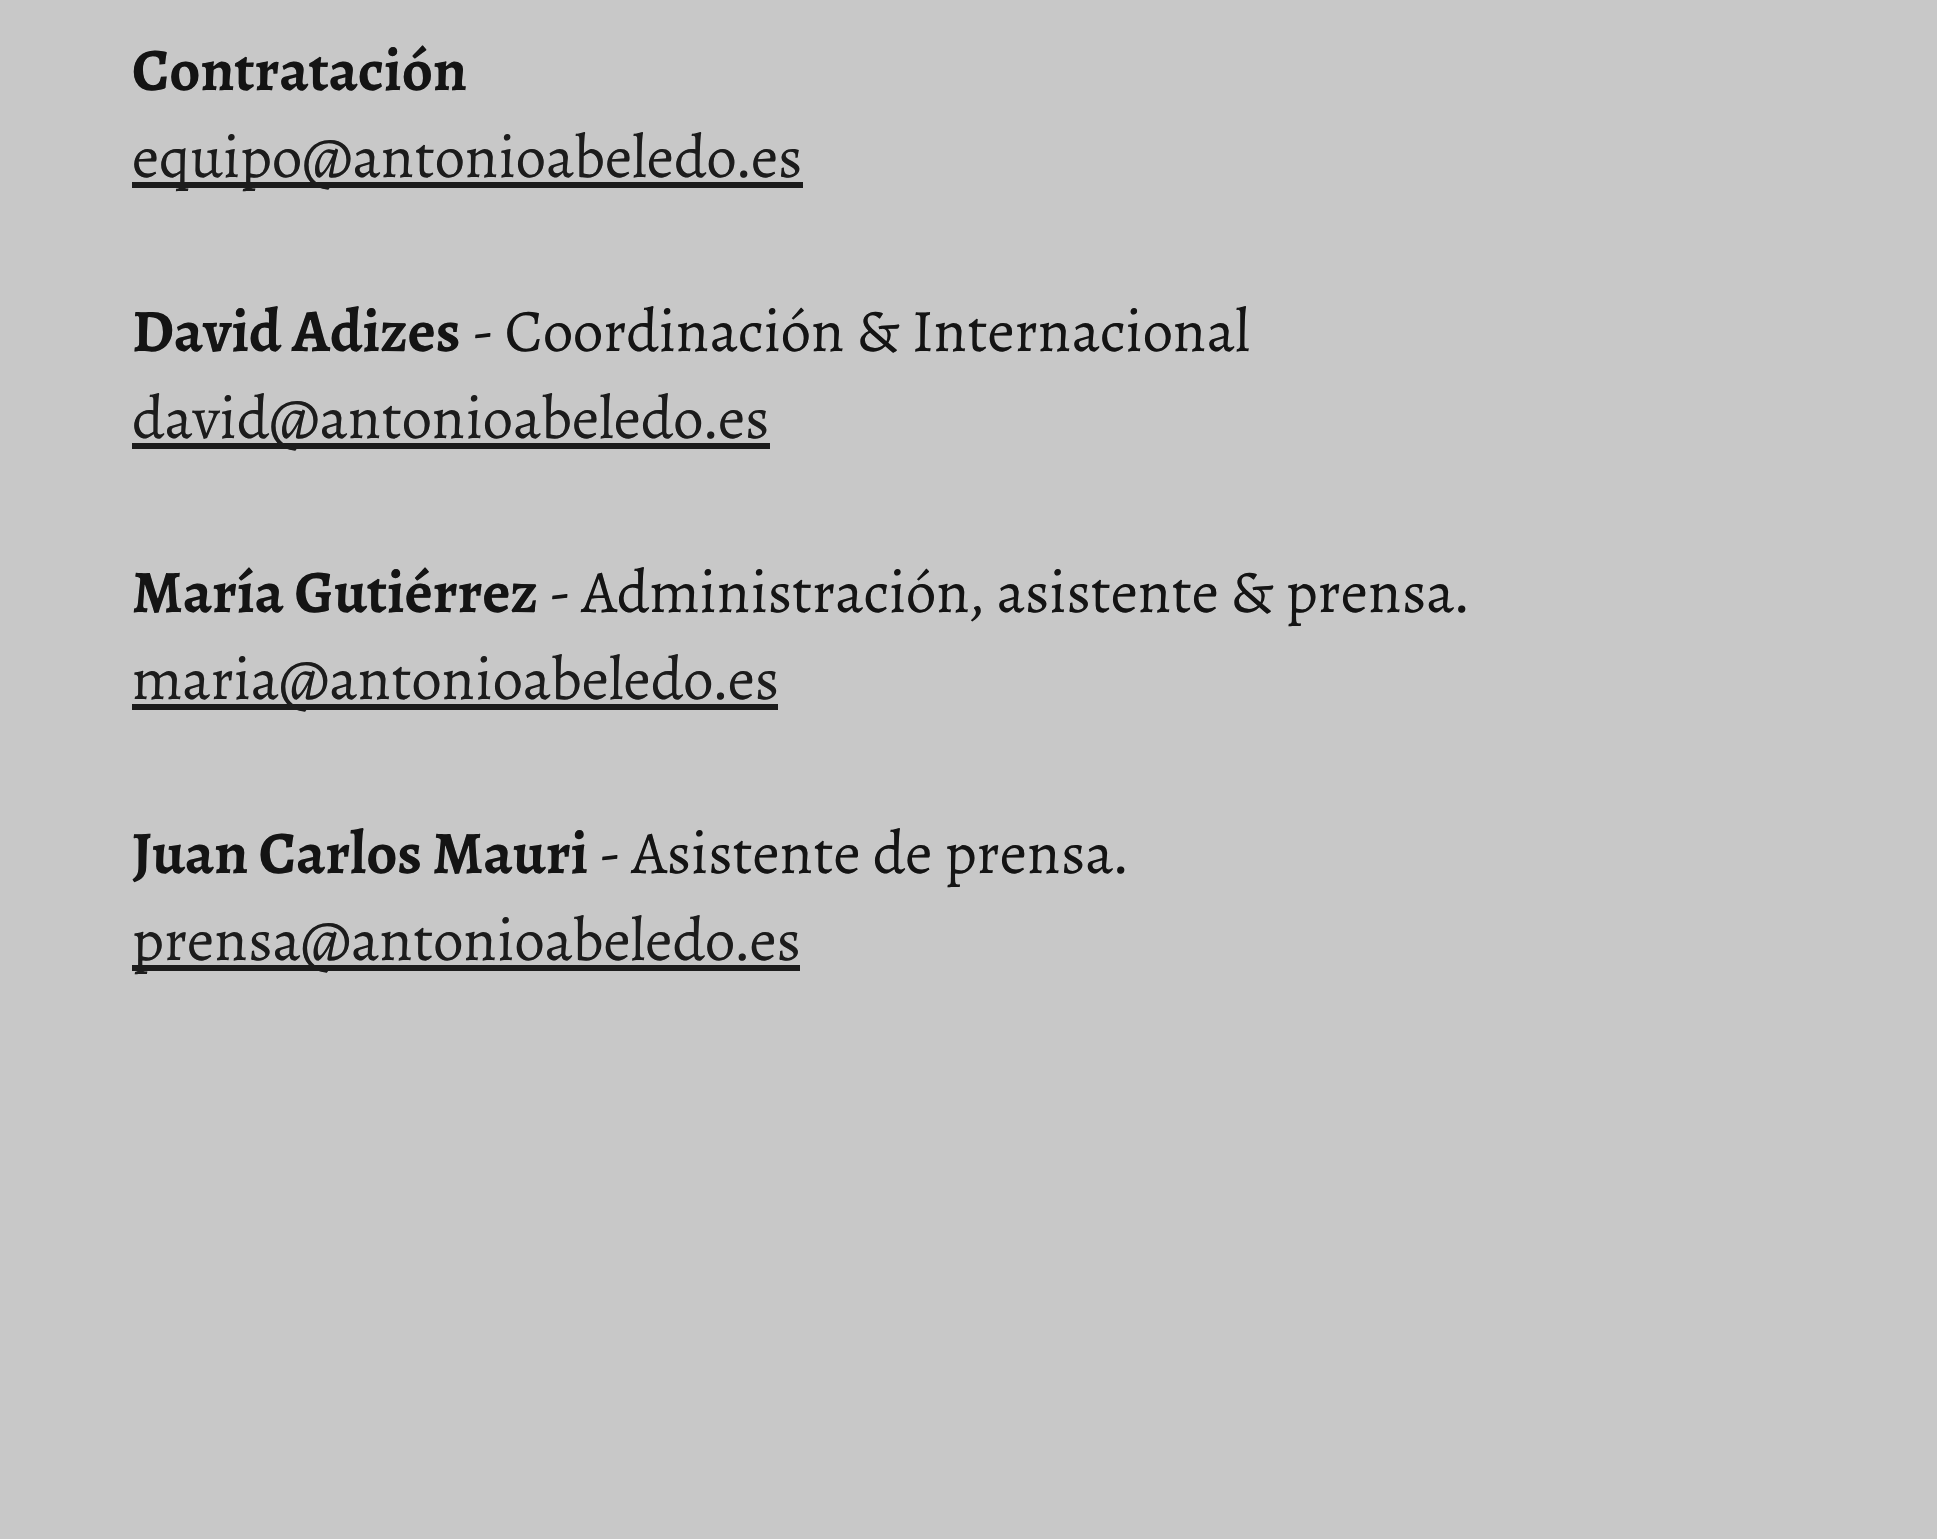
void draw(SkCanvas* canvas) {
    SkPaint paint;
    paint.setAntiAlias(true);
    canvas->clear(0xFFC8C8C8);
    SkFont font1(fontMgr->matchFamilyStyle("Alegreya", SkFontStyle::Bold()), 60.5f);
    font1.setSubpixel(true);
    paint.setColor(0xFF141414);
    canvas->drawString("Contratación", 132, 90, font1, paint);
    paint.setColor(0xFF1C1C1C);
    canvas->drawRect(SkRect::MakeXYWH(132, 182, 671, 6), paint);
    SkFont font2(fontMgr->matchFamilyStyle("Alegreya", SkFontStyle::Normal()), 60.5f);
    font2.setSubpixel(true);
    canvas->drawString("equipo@antonioabeledo.es", 132, 177, font2, paint);
    paint.setColor(0xFF141414);
    canvas->drawString("David Adizes", 132, 351, font1, paint);
    canvas->drawString("- Coordinación & Internacional", 473, 351, font2, paint);
    paint.setColor(0xFF1C1C1C);
    canvas->drawRect(SkRect::MakeXYWH(132, 443, 638, 6), paint);
    canvas->drawString("david@antonioabeledo.es", 132, 438, font2, paint);
    paint.setColor(0xFF141414);
    canvas->drawString("María Gutiérrez", 132, 612, font1, paint);
    canvas->drawString("- Administración, asistente & prensa.", 550, 612, font2, paint);
    paint.setColor(0xFF1C1C1C);
    canvas->drawRect(SkRect::MakeXYWH(132, 704, 646, 6), paint);
    canvas->drawString("maria@antonioabeledo.es", 132, 699, font2, paint);
    paint.setColor(0xFF141414);
    canvas->drawString("Juan Carlos Mauri", 132, 873, font1, paint);
    canvas->drawString("- Asistente de prensa.", 600, 873, font2, paint);
    paint.setColor(0xFF1C1C1C);
    canvas->drawRect(SkRect::MakeXYWH(132, 965, 668, 6), paint);
    canvas->drawString("prensa@antonioabeledo.es", 132, 960, font2, paint);
}
